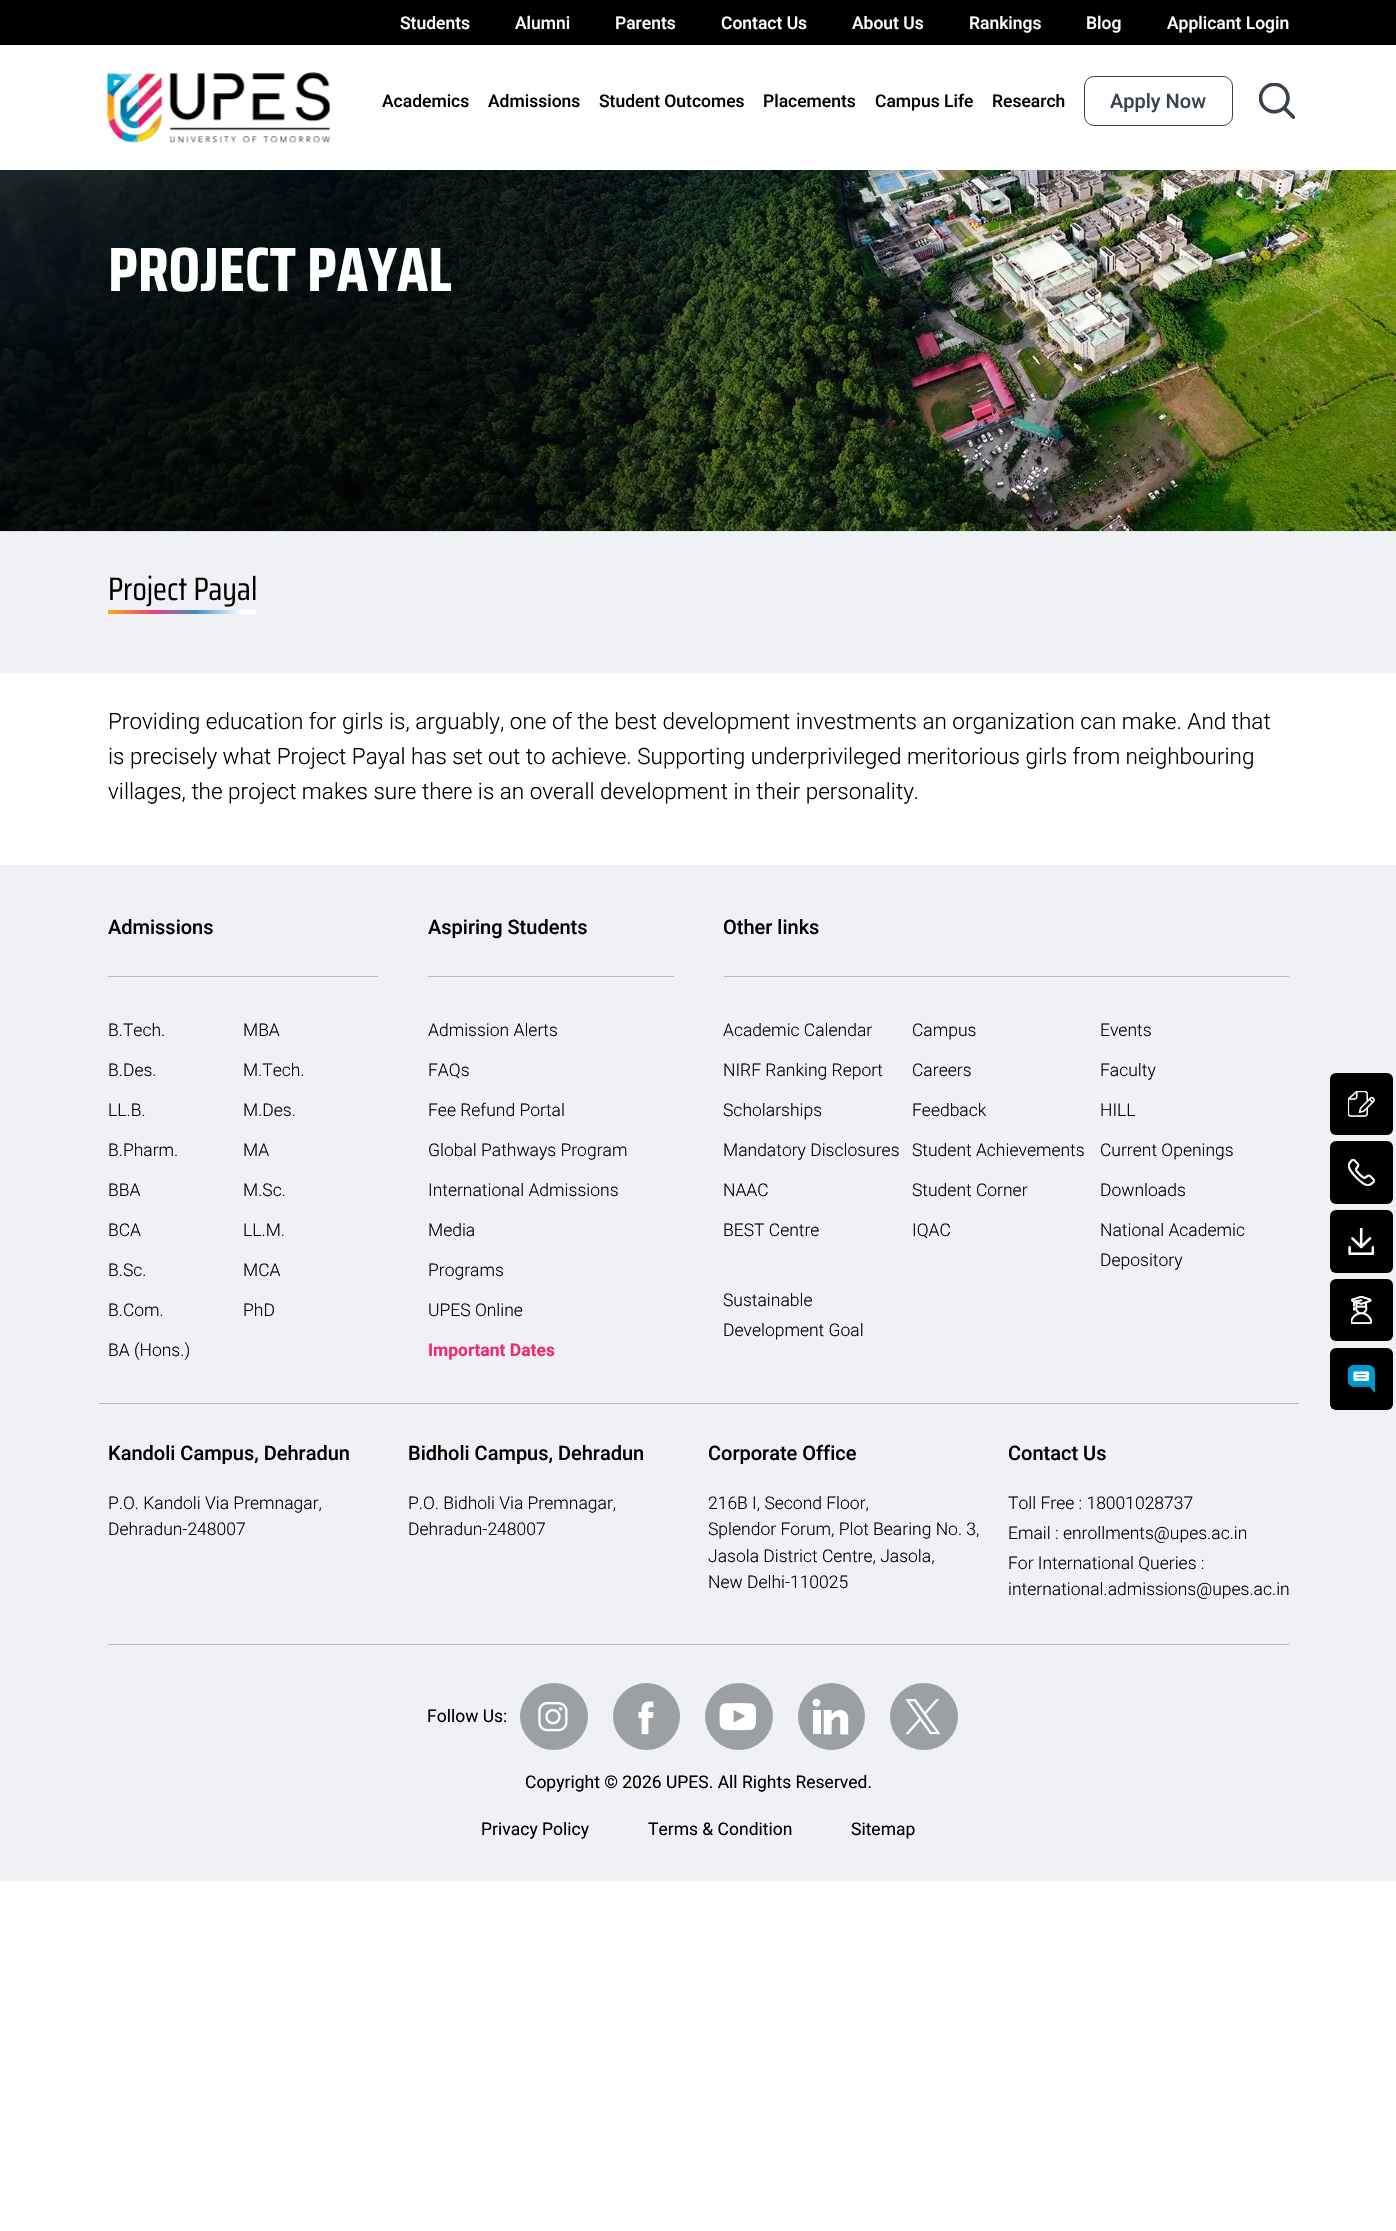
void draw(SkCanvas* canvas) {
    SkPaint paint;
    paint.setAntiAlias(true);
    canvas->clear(0xFFFFFFFF);
    paint.setColor(0xFF000000);
    canvas->drawRect(SkRect::MakeXYWH(0, 0, 1396, 45), paint);
    SkFont font1(fontMgr->matchFamilyStyle("Roboto", SkFontStyle(500, SkFontStyle::kNormal_Width, SkFontStyle::kUpright_Slant)), 17.5f);
    font1.setSubpixel(true);
    paint.setColor(0xFFFFFFFF);
    canvas->drawString("Students", 400, 29, font1, paint);
    canvas->drawString("Alumni", 515, 29, font1, paint);
    canvas->drawString("Parents", 615, 29, font1, paint);
    canvas->drawString("Contact Us", 721, 29, font1, paint);
    canvas->drawString("About Us", 852, 29, font1, paint);
    canvas->drawString("Rankings", 969, 29, font1, paint);
    canvas->drawString("Blog", 1086, 29, font1, paint);
    canvas->drawString("Applicant Login", 1167, 29, font1, paint);
    canvas->drawImageRect(SkImages::DeferredFromEncodedData(SkData::MakeFromFileName("img1.png")), SkRect::MakeXYWH(107, 72, 223, 71), SkSamplingOptions());
    paint.setColor(0xFF000000);
    canvas->drawString("Academics", 382, 107, font1, paint);
    canvas->drawString("Admissions", 488, 107, font1, paint);
    canvas->drawString("Student Outcomes", 599, 107, font1, paint);
    canvas->drawString("Placements", 763, 107, font1, paint);
    canvas->drawString("Campus Life", 875, 107, font1, paint);
    canvas->drawString("Research", 992, 107, font1, paint);
    paint.setStyle(SkPaint::kStroke_Style);
    paint.setStrokeWidth(1);
    paint.setColor(0xFF39414C);
    canvas->drawRoundRect(SkRect::MakeXYWH(1084.5f, 76.5f, 148, 49), 9.5f, 9.5f, paint);
    SkFont font2(fontMgr->matchFamilyStyle("Roboto", SkFontStyle(500, SkFontStyle::kNormal_Width, SkFontStyle::kUpright_Slant)), 20);
    font2.setSubpixel(true);
    paint.setStyle(SkPaint::kFill_Style);
    canvas->drawString("Apply Now", 1110, 108, font2, paint);
    canvas->drawImageRect(SkImages::DeferredFromEncodedData(SkData::MakeFromFileName("img2.png")), SkRect::MakeXYWH(1259, 83, 36, 36), SkSamplingOptions());
    paint.setColor(0xFFEFF1F4);
    canvas->drawRect(SkRect::MakeXYWH(0, 531, 1396, 142), paint);
    canvas->drawImageRect(SkImages::DeferredFromEncodedData(SkData::MakeFromFileName("img3.png")), SkRect::MakeXYWH(0, 170, 1396, 362), SkSamplingOptions());
    SkFont font3(fontMgr->matchFamilyStyle("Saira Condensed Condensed", SkFontStyle::Bold()), 62.5f);
    font3.setSubpixel(true);
    paint.setColor(0xFFFFFFFF);
    canvas->drawString("PROJECT PAYAL", 108, 291, font3, paint);
    SkFont font4(fontMgr->matchFamilyStyle("Saira Condensed", SkFontStyle::Normal()), 32.5f);
    font4.setSubpixel(true);
    paint.setColor(0xFF000000);
    canvas->drawString("Project Payal", 108, 600, font4, paint);
    {
        const SkColor colors[] = {0xFFF9A91A, 0xFFEB417A, 0xFF3F91C1, 0xFFFFFFFF};
        const float stops[] = {0, 0.3f, 0.6f, 0.9f};
        const SkPoint ends[] = {{108, 612}, {256, 612}};
        paint.setShader(SkGradientShader::MakeLinear(ends, colors, stops, 4, SkTileMode::kClamp));
        paint.setAlpha(255);
    }
    canvas->drawRect(SkRect::MakeXYWH(108, 610, 148, 4), paint);
    SkFont font5(fontMgr->matchFamilyStyle("Roboto", SkFontStyle(300, SkFontStyle::kNormal_Width, SkFontStyle::kUpright_Slant)), 22.5f);
    font5.setSubpixel(true);
    paint.setShader(nullptr);
    paint.setColor(0xFF000000);
    canvas->drawString("Providing education for girls is, arguably, one of the best development investments an organization can make. And that", 108, 729, font5, paint);
    canvas->drawString("is precisely what Project Payal has set out to achieve. Supporting underprivileged meritorious girls from neighbouring", 108, 764, font5, paint);
    canvas->drawString("villages, the project makes sure there is an overall development in their personality.", 108, 799, font5, paint);
    paint.setColor(0xFFEFF1F4);
    canvas->drawRect(SkRect::MakeXYWH(0, 865, 1396, 1016), paint);
    paint.setColor(0xFFBABABA);
    canvas->drawRect(SkRect::MakeXYWH(108, 976, 270, 1), paint);
    paint.setColor(0xFF000000);
    canvas->drawString("Admissions", 108, 934, font2, paint);
    SkFont font6(fontMgr->matchFamilyStyle("Roboto", SkFontStyle(300, SkFontStyle::kNormal_Width, SkFontStyle::kUpright_Slant)), 17.5f);
    font6.setSubpixel(true);
    canvas->drawString("B.Tech.", 108, 1036, font6, paint);
    canvas->drawString("MBA", 243, 1036, font6, paint);
    canvas->drawString("B.Des.", 108, 1076, font6, paint);
    canvas->drawString("M.Tech.", 243, 1076, font6, paint);
    canvas->drawString("LL.B.", 108, 1116, font6, paint);
    canvas->drawString("M.Des.", 243, 1116, font6, paint);
    canvas->drawString("B.Pharm.", 108, 1156, font6, paint);
    canvas->drawString("MA", 243, 1156, font6, paint);
    canvas->drawString("BBA", 108, 1196, font6, paint);
    canvas->drawString("M.Sc.", 243, 1196, font6, paint);
    canvas->drawString("BCA", 108, 1236, font6, paint);
    canvas->drawString("LL.M.", 243, 1236, font6, paint);
    canvas->drawString("B.Sc.", 108, 1276, font6, paint);
    canvas->drawString("MCA", 243, 1276, font6, paint);
    canvas->drawString("B.Com.", 108, 1316, font6, paint);
    canvas->drawString("PhD", 243, 1316, font6, paint);
    canvas->drawString("BA (Hons.)", 108, 1356, font6, paint);
    paint.setColor(0xFFBABABA);
    canvas->drawRect(SkRect::MakeXYWH(428, 976, 246, 1), paint);
    paint.setColor(0xFF000000);
    canvas->drawString("Aspiring Students", 428, 934, font2, paint);
    canvas->drawString("Admission Alerts", 428, 1036, font6, paint);
    canvas->drawString("FAQs", 428, 1076, font6, paint);
    canvas->drawString("Fee Refund Portal", 428, 1116, font6, paint);
    canvas->drawString("Global Pathways Program", 428, 1156, font6, paint);
    canvas->drawString("International Admissions", 428, 1196, font6, paint);
    canvas->drawString("Media", 428, 1236, font6, paint);
    canvas->drawString("Programs", 428, 1276, font6, paint);
    canvas->drawString("UPES Online", 428, 1316, font6, paint);
    SkFont font7(fontMgr->matchFamilyStyle("Roboto", SkFontStyle::Bold()), 17.5f);
    font7.setSubpixel(true);
    paint.setColor(0xFFEE2B6D);
    canvas->drawString("Important Dates", 428, 1356, font7, paint);
    paint.setColor(0xFFBABABA);
    canvas->drawRect(SkRect::MakeXYWH(724, 976, 565, 1), paint);
    paint.setColor(0xFF000000);
    canvas->drawString("Other links", 723, 934, font2, paint);
    canvas->drawString("Academic Calendar", 723, 1036, font6, paint);
    canvas->drawString("Campus", 912, 1036, font6, paint);
    canvas->drawString("Events", 1100, 1036, font6, paint);
    canvas->drawString("NIRF Ranking Report", 723, 1076, font6, paint);
    canvas->drawString("Careers", 912, 1076, font6, paint);
    canvas->drawString("Faculty", 1100, 1076, font6, paint);
    canvas->drawString("Scholarships", 723, 1116, font6, paint);
    canvas->drawString("Feedback", 912, 1116, font6, paint);
    canvas->drawString("HILL", 1100, 1116, font6, paint);
    canvas->drawString("Mandatory Disclosures", 723, 1156, font6, paint);
    canvas->drawString("Student Achievements", 912, 1156, font6, paint);
    canvas->drawString("Current Openings", 1100, 1156, font6, paint);
    canvas->drawString("NAAC", 723, 1196, font6, paint);
    canvas->drawString("Student Corner", 912, 1196, font6, paint);
    canvas->drawString("Downloads", 1100, 1196, font6, paint);
    canvas->drawString("BEST Centre", 723, 1236, font6, paint);
    canvas->drawString("IQAC", 912, 1236, font6, paint);
    canvas->drawString("National Academic", 1100, 1236, font6, paint);
    canvas->drawString("Depository", 1100, 1266, font6, paint);
    canvas->drawString("Sustainable", 723, 1306, font6, paint);
    canvas->drawString("Development Goal", 723, 1336, font6, paint);
    paint.setColor(0xFFBABABA);
    canvas->drawRect(SkRect::MakeXYWH(99, 1403, 1200, 1), paint);
    paint.setColor(0xFF000000);
    canvas->drawString("Kandoli Campus, Dehradun", 108, 1460, font2, paint);
    canvas->drawString("P.O. Kandoli Via Premnagar,", 108, 1509, font6, paint);
    canvas->drawString("Dehradun-248007", 108, 1535, font6, paint);
    canvas->drawString("Bidholi Campus, Dehradun", 408, 1460, font2, paint);
    canvas->drawString("P.O. Bidholi Via Premnagar,", 408, 1509, font6, paint);
    canvas->drawString("Dehradun-248007", 408, 1535, font6, paint);
    canvas->drawString("Corporate Office", 708, 1460, font2, paint);
    canvas->drawString("216B I, Second Floor,", 708, 1509, font6, paint);
    canvas->drawString("Splendor Forum, Plot Bearing No. 3,", 708, 1535, font6, paint);
    canvas->drawString("Jasola District Centre, Jasola,", 708, 1562, font6, paint);
    canvas->drawString("New Delhi-110025", 708, 1588, font6, paint);
    canvas->drawString("Contact Us", 1008, 1460, font2, paint);
    canvas->drawString("Toll Free : 18001028737", 1008, 1509, font6, paint);
    canvas->drawString("Email : enrollments@upes.ac.in", 1008, 1539, font6, paint);
    canvas->drawString("For International Queries :", 1008, 1569, font6, paint);
    canvas->drawString("international.admissions@upes.ac.in", 1008, 1595, font6, paint);
    paint.setColor(0xFFBABABA);
    canvas->drawRect(SkRect::MakeXYWH(108, 1644, 1181, 1), paint);
    SkFont font8(fontMgr->matchFamilyStyle("Roboto", SkFontStyle::Normal()), 17.5f);
    font8.setSubpixel(true);
    paint.setColor(0xFF000000);
    canvas->drawString("Follow Us:", 427, 1722, font8, paint);
    paint.setColor(0xFF9CA0A5);
    canvas->drawRoundRect(SkRect::MakeXYWH(520.5f, 1683.5f, 67, 66), 33, 33, paint);
    paint.setStyle(SkPaint::kStroke_Style);
    canvas->drawRoundRect(SkRect::MakeXYWH(520.5f, 1683.5f, 67, 66), 33, 33, paint);
    canvas->drawImageRect(SkImages::DeferredFromEncodedData(SkData::MakeFromFileName("img4.png")), SkRect::MakeXYWH(538, 1702, 30, 30), SkSamplingOptions());
    paint.setStyle(SkPaint::kFill_Style);
    canvas->drawCircle(646.5f, 1716.5f, 33, paint);
    paint.setStyle(SkPaint::kStroke_Style);
    canvas->drawCircle(646.5f, 1716.5f, 33, paint);
    canvas->drawImageRect(SkImages::DeferredFromEncodedData(SkData::MakeFromFileName("img5.png")), SkRect::MakeXYWH(638, 1701, 16, 34), SkSamplingOptions());
    paint.setStyle(SkPaint::kFill_Style);
    canvas->drawRoundRect(SkRect::MakeXYWH(705.5f, 1683.5f, 67, 66), 33, 33, paint);
    paint.setStyle(SkPaint::kStroke_Style);
    canvas->drawRoundRect(SkRect::MakeXYWH(705.5f, 1683.5f, 67, 66), 33, 33, paint);
    canvas->drawImageRect(SkImages::DeferredFromEncodedData(SkData::MakeFromFileName("img6.png")), SkRect::MakeXYWH(719, 1703, 37, 28), SkSamplingOptions());
    paint.setStyle(SkPaint::kFill_Style);
    canvas->drawCircle(831.5f, 1716.5f, 33, paint);
    paint.setStyle(SkPaint::kStroke_Style);
    canvas->drawCircle(831.5f, 1716.5f, 33, paint);
    canvas->drawImageRect(SkImages::DeferredFromEncodedData(SkData::MakeFromFileName("img7.png")), SkRect::MakeXYWH(812, 1698, 37, 37), SkSamplingOptions());
    paint.setStyle(SkPaint::kFill_Style);
    canvas->drawRoundRect(SkRect::MakeXYWH(890.5f, 1683.5f, 67, 66), 33, 33, paint);
    paint.setStyle(SkPaint::kStroke_Style);
    canvas->drawRoundRect(SkRect::MakeXYWH(890.5f, 1683.5f, 67, 66), 33, 33, paint);
    canvas->drawImageRect(SkImages::DeferredFromEncodedData(SkData::MakeFromFileName("img8.png")), SkRect::MakeXYWH(905, 1699, 36, 36), SkSamplingOptions());
    paint.setStyle(SkPaint::kFill_Style);
    paint.setColor(0xFF000000);
    canvas->drawString("Copyright © 2026 UPES. All Rights Reserved.", 525, 1788, font8, paint);
    canvas->drawString("Privacy Policy", 481, 1835, font8, paint);
    canvas->drawString("Terms & Condition", 648, 1835, font8, paint);
    canvas->drawString("Sitemap", 851, 1835, font8, paint);
    canvas->drawRoundRect(SkRect::MakeXYWH(1330, 1073, 63, 62), 6, 6, paint);
    canvas->drawImageRect(SkImages::DeferredFromEncodedData(SkData::MakeFromFileName("img9.png")), SkRect::MakeXYWH(1348, 1091, 27, 26), SkSamplingOptions());
    canvas->drawRoundRect(SkRect::MakeXYWH(1330, 1141, 63, 63), 6, 6, paint);
    canvas->drawImageRect(SkImages::DeferredFromEncodedData(SkData::MakeFromFileName("img10.png")), SkRect::MakeXYWH(1348, 1159, 27, 27), SkSamplingOptions());
    canvas->drawRoundRect(SkRect::MakeXYWH(1330, 1210, 63, 63), 6, 6, paint);
    canvas->drawImageRect(SkImages::DeferredFromEncodedData(SkData::MakeFromFileName("img11.png")), SkRect::MakeXYWH(1348, 1228, 26, 27), SkSamplingOptions());
    canvas->drawRoundRect(SkRect::MakeXYWH(1330, 1279, 63, 62), 6, 6, paint);
    canvas->drawImageRect(SkImages::DeferredFromEncodedData(SkData::MakeFromFileName("img12.png")), SkRect::MakeXYWH(1351, 1296, 21, 28), SkSamplingOptions());
    canvas->drawRoundRect(SkRect::MakeXYWH(1330, 1348, 63, 62), 6, 6, paint);
    canvas->drawImageRect(SkImages::DeferredFromEncodedData(SkData::MakeFromFileName("img13.png")), SkRect::MakeXYWH(1348, 1365, 27, 28), SkSamplingOptions());
}
